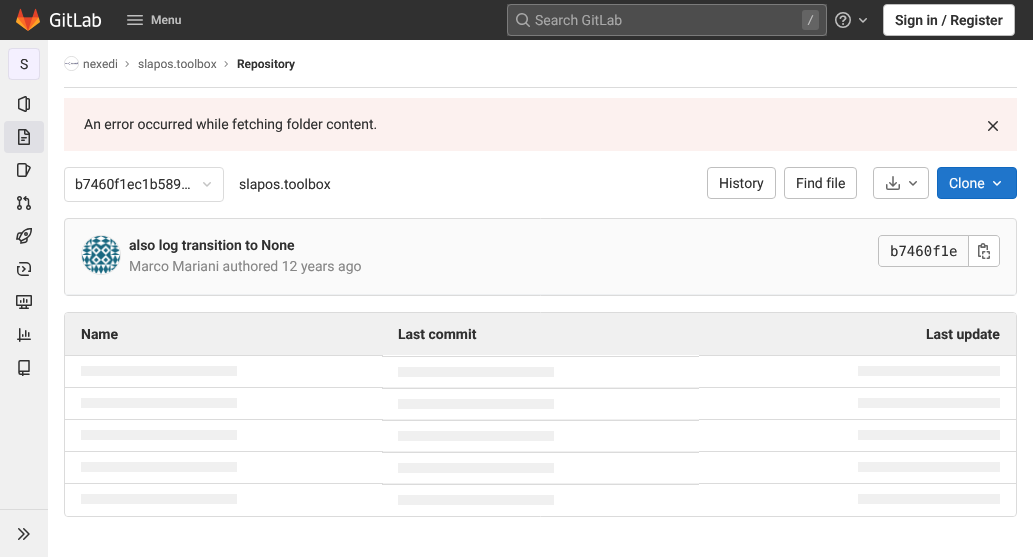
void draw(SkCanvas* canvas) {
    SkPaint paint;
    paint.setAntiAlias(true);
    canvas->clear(0xFFFFFFFF);
    paint.setColor(0xFF303030);
    canvas->drawRect(SkRect::MakeXYWH(0, 0, 1033, 40), paint);
    canvas->drawImageRect(SkImages::DeferredFromEncodedData(SkData::MakeFromFileName("img1.png")), SkRect::MakeXYWH(16, 8, 24, 23), SkSamplingOptions());
    canvas->drawImageRect(SkImages::DeferredFromEncodedData(SkData::MakeFromFileName("img2.png")), SkRect::MakeXYWH(49, 13, 53, 14), SkSamplingOptions());
    canvas->drawImageRect(SkImages::DeferredFromEncodedData(SkData::MakeFromFileName("img3.png")), SkRect::MakeXYWH(127, 15, 16, 10), SkSamplingOptions());
    SkFont font1(fontMgr->matchFamilyStyle("Roboto", SkFontStyle(600, SkFontStyle::kNormal_Width, SkFontStyle::kUpright_Slant)), 12);
    font1.setSubpixel(true);
    paint.setColor(0xFFBFBFBF);
    canvas->drawString("Menu", 151, 24, font1, paint);
    paint.setColor(0xFF4D4D4D);
    canvas->drawRect(SkRect::MakeXYWH(507, 4, 320, 32), paint);
    paint.setStyle(SkPaint::kStroke_Style);
    paint.setStrokeWidth(1);
    paint.setColor(0xFF7B7B7B);
    canvas->drawRoundRect(SkRect::MakeXYWH(507.5f, 4.5f, 319, 31), 3.5f, 3.5f, paint);
    canvas->drawImageRect(SkImages::DeferredFromEncodedData(SkData::MakeFromFileName("img4.png")), SkRect::MakeXYWH(516, 13, 14, 14), SkSamplingOptions());
    SkFont font2(fontMgr->matchFamilyStyle("Roboto", SkFontStyle::Normal()), 14);
    font2.setSubpixel(true);
    paint.setStyle(SkPaint::kFill_Style);
    paint.setColor(0xFFA8A8A8);
    canvas->drawString("Search GitLab", 535, 25, font2, paint);
    paint.setColor(0xFF646464);
    canvas->drawRoundRect(SkRect::MakeXYWH(802, 10, 17, 20), 3, 3, paint);
    SkFont font3(fontMgr->matchFamilyStyle("DejaVu Sans Mono", SkFontStyle::Normal()), 12);
    font3.setSubpixel(true);
    paint.setColor(0xFFBFBFBF);
    canvas->drawString("/", 807, 24, font3, paint);
    canvas->drawImageRect(SkImages::DeferredFromEncodedData(SkData::MakeFromFileName("img5.png")), SkRect::MakeXYWH(835, 12, 16, 16), SkSamplingOptions());
    canvas->drawImageRect(SkImages::DeferredFromEncodedData(SkData::MakeFromFileName("img6.png")), SkRect::MakeXYWH(859, 18, 8, 5), SkSamplingOptions());
    paint.setColor(0xFFFFFFFF);
    canvas->drawRoundRect(SkRect::MakeXYWH(883.5f, 4.5f, 131, 31), 3.5f, 3.5f, paint);
    paint.setStyle(SkPaint::kStroke_Style);
    paint.setColor(0xFFBFBFBF);
    canvas->drawRoundRect(SkRect::MakeXYWH(883.5f, 4.5f, 131, 31), 3.5f, 3.5f, paint);
    SkFont font4(fontMgr->matchFamilyStyle("Roboto", SkFontStyle(600, SkFontStyle::kNormal_Width, SkFontStyle::kUpright_Slant)), 14);
    font4.setSubpixel(true);
    paint.setStyle(SkPaint::kFill_Style);
    paint.setColor(0xFF303030);
    canvas->drawString("Sign in / Register", 895, 25, font4, paint);
    paint.setColor(0xFFF0F0F0);
    canvas->drawRect(SkRect::MakeXYWH(0, 40, 48, 517), paint);
    paint.setStyle(SkPaint::kStroke_Style);
    paint.setColor(0x14000000);
    canvas->drawRoundRect(SkRect::MakeXYWH(8.5f, 48.5f, 31, 31), 3.5f, 3.5f, paint);
    paint.setStyle(SkPaint::kFill_Style);
    paint.setColor(0xFFF4F0FF);
    canvas->drawRoundRect(SkRect::MakeXYWH(8, 48, 32, 32), 4, 4, paint);
    paint.setStyle(SkPaint::kStroke_Style);
    paint.setColor(0x14000000);
    canvas->drawRoundRect(SkRect::MakeXYWH(8.5f, 48.5f, 31, 31), 3.5f, 3.5f, paint);
    paint.setStyle(SkPaint::kFill_Style);
    paint.setColor(0xFF303030);
    canvas->drawString("S", 20, 69, font2, paint);
    canvas->drawImageRect(SkImages::DeferredFromEncodedData(SkData::MakeFromFileName("img7.png")), SkRect::MakeXYWH(18, 96, 12, 16), SkSamplingOptions());
    paint.setColor(0xFFE0E0E5);
    canvas->drawRoundRect(SkRect::MakeXYWH(4, 121, 40, 32), 4, 4, paint);
    canvas->drawImageRect(SkImages::DeferredFromEncodedData(SkData::MakeFromFileName("img8.png")), SkRect::MakeXYWH(18, 129, 12, 16), SkSamplingOptions());
    canvas->drawImageRect(SkImages::DeferredFromEncodedData(SkData::MakeFromFileName("img9.png")), SkRect::MakeXYWH(17, 163, 14, 14), SkSamplingOptions());
    canvas->drawImageRect(SkImages::DeferredFromEncodedData(SkData::MakeFromFileName("img10.png")), SkRect::MakeXYWH(17, 196, 14, 14), SkSamplingOptions());
    canvas->drawImageRect(SkImages::DeferredFromEncodedData(SkData::MakeFromFileName("img11.png")), SkRect::MakeXYWH(16, 228, 16, 16), SkSamplingOptions());
    canvas->drawImageRect(SkImages::DeferredFromEncodedData(SkData::MakeFromFileName("img12.png")), SkRect::MakeXYWH(17, 262, 14, 14), SkSamplingOptions());
    canvas->drawImageRect(SkImages::DeferredFromEncodedData(SkData::MakeFromFileName("img13.png")), SkRect::MakeXYWH(16, 295, 16, 14), SkSamplingOptions());
    canvas->drawImageRect(SkImages::DeferredFromEncodedData(SkData::MakeFromFileName("img14.png")), SkRect::MakeXYWH(17, 328, 14, 14), SkSamplingOptions());
    canvas->drawImageRect(SkImages::DeferredFromEncodedData(SkData::MakeFromFileName("img15.png")), SkRect::MakeXYWH(18, 360, 12, 16), SkSamplingOptions());
    paint.setColor(0xFFDBDBDB);
    canvas->drawRect(SkRect::MakeXYWH(0, 509, 48, 1), paint);
    canvas->drawImageRect(SkImages::DeferredFromEncodedData(SkData::MakeFromFileName("img16.png")), SkRect::MakeXYWH(18, 528, 12, 12), SkSamplingOptions());
    canvas->drawRect(SkRect::MakeXYWH(64, 87, 953, 1), paint);
    paint.setStyle(SkPaint::kStroke_Style);
    canvas->drawCircle(71.5f, 63.5f, 7, paint);
    canvas->drawImageRect(SkImages::DeferredFromEncodedData(SkData::MakeFromFileName("img17.png")), SkRect::MakeXYWH(65, 57, 13, 13), SkSamplingOptions());
    SkFont font5(fontMgr->matchFamilyStyle("Roboto", SkFontStyle::Normal()), 12);
    font5.setSubpixel(true);
    paint.setStyle(SkPaint::kFill_Style);
    paint.setColor(0xFF666666);
    canvas->drawString("nexedi", 83, 68, font5, paint);
    canvas->drawImageRect(SkImages::DeferredFromEncodedData(SkData::MakeFromFileName("img18.png")), SkRect::MakeXYWH(125, 61, 4, 6), SkSamplingOptions());
    canvas->drawString("slapos.toolbox", 138, 68, font5, paint);
    canvas->drawImageRect(SkImages::DeferredFromEncodedData(SkData::MakeFromFileName("img18.png")), SkRect::MakeXYWH(224, 61, 4, 6), SkSamplingOptions());
    paint.setColor(0xFF303030);
    canvas->drawString("Repository", 237, 68, font1, paint);
    paint.setColor(0xFFFCF1EF);
    canvas->drawRect(SkRect::MakeXYWH(64, 98, 953, 53), paint);
    paint.setColor(0xFF303030);
    canvas->drawString("An error occurred while fetching folder content.", 84, 129, font2, paint);
    canvas->drawImageRect(SkImages::DeferredFromEncodedData(SkData::MakeFromFileName("img19.png")), SkRect::MakeXYWH(988, 121, 10, 10), SkSamplingOptions());
    paint.setStyle(SkPaint::kStroke_Style);
    paint.setColor(0xFFDBDBDB);
    canvas->drawRoundRect(SkRect::MakeXYWH(64.5f, 167.5f, 159, 34), 3.5f, 3.5f, paint);
    paint.setStyle(SkPaint::kFill_Style);
    paint.setColor(0xFF303030);
    canvas->drawString("b7460f1ec1b589…", 75, 189, font2, paint);
    canvas->drawImageRect(SkImages::DeferredFromEncodedData(SkData::MakeFromFileName("img20.png")), SkRect::MakeXYWH(203, 182, 8, 5), SkSamplingOptions());
    canvas->drawString("slapos.toolbox", 239, 189, font2, paint);
    paint.setStyle(SkPaint::kStroke_Style);
    paint.setColor(0xFFBFBFBF);
    canvas->drawRoundRect(SkRect::MakeXYWH(707.5f, 167.5f, 68, 31), 3.5f, 3.5f, paint);
    paint.setStyle(SkPaint::kFill_Style);
    paint.setColor(0xFF303030);
    canvas->drawString("History", 719, 188, font2, paint);
    paint.setStyle(SkPaint::kStroke_Style);
    paint.setColor(0xFFBFBFBF);
    canvas->drawRoundRect(SkRect::MakeXYWH(784.5f, 167.5f, 72, 31), 3.5f, 3.5f, paint);
    paint.setStyle(SkPaint::kFill_Style);
    paint.setColor(0xFF303030);
    canvas->drawString("Find file", 796, 188, font2, paint);
    paint.setStyle(SkPaint::kStroke_Style);
    paint.setColor(0xFFBFBFBF);
    canvas->drawRoundRect(SkRect::MakeXYWH(873.5f, 167.5f, 55, 31), 3.5f, 3.5f, paint);
    canvas->drawImageRect(SkImages::DeferredFromEncodedData(SkData::MakeFromFileName("img21.png")), SkRect::MakeXYWH(886, 176, 14, 14), SkSamplingOptions());
    canvas->drawImageRect(SkImages::DeferredFromEncodedData(SkData::MakeFromFileName("img22.png")), SkRect::MakeXYWH(909, 181, 8, 5), SkSamplingOptions());
    paint.setStyle(SkPaint::kFill_Style);
    paint.setColor(0xFF1F75CB);
    canvas->drawRoundRect(SkRect::MakeXYWH(937.5f, 167.5f, 79, 31), 3.5f, 3.5f, paint);
    paint.setStyle(SkPaint::kStroke_Style);
    paint.setColor(0xFF1068BF);
    canvas->drawRoundRect(SkRect::MakeXYWH(937.5f, 167.5f, 79, 31), 3.5f, 3.5f, paint);
    paint.setStyle(SkPaint::kFill_Style);
    paint.setColor(0xFFFFFFFF);
    canvas->drawString("Clone", 949, 188, font2, paint);
    canvas->drawImageRect(SkImages::DeferredFromEncodedData(SkData::MakeFromFileName("img23.png")), SkRect::MakeXYWH(993, 181, 8, 5), SkSamplingOptions());
    paint.setColor(0xFFFAFAFA);
    canvas->drawRoundRect(SkRect::MakeXYWH(64.5f, 218.5f, 952, 77), 3.5f, 3.5f, paint);
    paint.setStyle(SkPaint::kStroke_Style);
    paint.setColor(0xFFDBDBDB);
    canvas->drawRoundRect(SkRect::MakeXYWH(64.5f, 218.5f, 952, 77), 3.5f, 3.5f, paint);
    paint.setStyle(SkPaint::kFill_Style);
    paint.setColor(0xFFEEF0F2);
    canvas->drawRect(SkRect::MakeXYWH(65, 294, 951, 1), paint);
    paint.setColor(0xFFFDFDFD);
    canvas->drawCircle(101, 255, 19.5f, paint);
    paint.setStyle(SkPaint::kStroke_Style);
    paint.setColor(0xFFE3E3E3);
    canvas->drawCircle(101, 255, 19.5f, paint);
    canvas->drawImageRect(SkImages::DeferredFromEncodedData(SkData::MakeFromFileName("img24.png")), SkRect::MakeXYWH(82, 236, 38, 38), SkSamplingOptions());
    paint.setStyle(SkPaint::kFill_Style);
    paint.setColor(0xFF303030);
    canvas->drawString("also log transition to None", 129, 250, font4, paint);
    paint.setColor(0xFF868686);
    canvas->drawString("Marco Mariani authored 12 years ago", 129, 271, font2, paint);
    paint.setStyle(SkPaint::kStroke_Style);
    paint.setColor(0xFFBFBFBF);
    canvas->drawPath(SkPathBuilder().moveTo(882, 235.5f).lineTo(968.5f, 235.5f).lineTo(968.5f, 266.5f).lineTo(882, 266.5f).cubicTo(880, 266.5f, 878.5f, 265, 878.5f, 263).lineTo(878.5f, 239).cubicTo(878.5f, 237, 880, 235.5f, 882, 235.5f).close().detach(), paint);
    SkFont font6(fontMgr->matchFamilyStyle("DejaVu Sans Mono", SkFontStyle::Normal()), 14);
    font6.setSubpixel(true);
    paint.setStyle(SkPaint::kFill_Style);
    paint.setColor(0xFF303030);
    canvas->drawString("b7460f1e", 890, 256, font6, paint);
    paint.setColor(0xFFFFFFFF);
    canvas->drawPath(SkPathBuilder().moveTo(968.5f, 235.5f).lineTo(996, 235.5f).cubicTo(998, 235.5f, 999.5f, 237, 999.5f, 239).lineTo(999.5f, 263).cubicTo(999.5f, 265, 998, 266.5f, 996, 266.5f).lineTo(968.5f, 266.5f).close().detach(), paint);
    paint.setStyle(SkPaint::kStroke_Style);
    paint.setColor(0xFFBFBFBF);
    canvas->drawPath(SkPathBuilder().moveTo(968.5f, 235.5f).lineTo(996, 235.5f).cubicTo(998, 235.5f, 999.5f, 237, 999.5f, 239).lineTo(999.5f, 263).cubicTo(999.5f, 265, 998, 266.5f, 996, 266.5f).lineTo(968.5f, 266.5f).close().detach(), paint);
    canvas->drawImageRect(SkImages::DeferredFromEncodedData(SkData::MakeFromFileName("img25.png")), SkRect::MakeXYWH(978, 243, 12, 16), SkSamplingOptions());
    paint.setColor(0xFFDBDBDB);
    canvas->drawRoundRect(SkRect::MakeXYWH(64.5f, 312.5f, 952, 204), 3.5f, 3.5f, paint);
    canvas->save();
    canvas->clipPath(SkPathBuilder().moveTo(68, 313).lineTo(1013, 313).cubicTo(1014.5f, 313, 1016, 314.5f, 1016, 316).lineTo(1016, 513).cubicTo(1016, 514.5f, 1014.5f, 516, 1013, 516).lineTo(68, 516).cubicTo(66.5f, 516, 65, 514.5f, 65, 513).lineTo(65, 316).cubicTo(65, 314.5f, 66.5f, 313, 68, 313).close().detach(), true);
    paint.setStyle(SkPaint::kFill_Style);
    paint.setColor(0xFFF0F0F0);
    canvas->drawRect(SkRect::MakeXYWH(65, 313, 951, 1), paint);
    canvas->restore();
    canvas->drawRect(SkRect::MakeXYWH(65, 314, 951, 41), paint);
    SkFont font7(fontMgr->matchFamilyStyle("Roboto", SkFontStyle::Bold()), 14);
    font7.setSubpixel(true);
    paint.setColor(0xFF303030);
    canvas->drawString("Name", 81, 339, font7, paint);
    canvas->drawString("Last commit", 398, 339, font7, paint);
    canvas->drawString("Last update", 926, 339, font7, paint);
    paint.setColor(0xFFDBDBDB);
    canvas->drawRect(SkRect::MakeXYWH(65, 355, 318, 1), paint);
    paint.setColor(0xFFF0F0F0);
    canvas->drawRect(SkRect::MakeXYWH(81, 366, 156, 10), paint);
    paint.setColor(0xFFDBDBDB);
    canvas->drawRect(SkRect::MakeXYWH(382, 356, 317, 1), paint);
    paint.setColor(0xFFF0F0F0);
    canvas->drawRect(SkRect::MakeXYWH(398, 367, 156, 10), paint);
    paint.setColor(0xFFDBDBDB);
    canvas->drawRect(SkRect::MakeXYWH(699, 355, 317, 1), paint);
    paint.setColor(0xFFF0F0F0);
    canvas->drawRect(SkRect::MakeXYWH(858, 366, 142, 10), paint);
    canvas->drawRect(SkRect::MakeXYWH(383, 387, 316, 1), paint);
    paint.setColor(0xFFDBDBDB);
    canvas->drawRect(SkRect::MakeXYWH(65, 387, 318, 1), paint);
    paint.setColor(0xFFF0F0F0);
    canvas->drawRect(SkRect::MakeXYWH(81, 398, 156, 10), paint);
    paint.setColor(0xFFDBDBDB);
    canvas->drawRect(SkRect::MakeXYWH(382, 388, 317, 1), paint);
    paint.setColor(0xFFF0F0F0);
    canvas->drawRect(SkRect::MakeXYWH(398, 399, 156, 10), paint);
    paint.setColor(0xFFDBDBDB);
    canvas->drawRect(SkRect::MakeXYWH(699, 387, 317, 1), paint);
    paint.setColor(0xFFF0F0F0);
    canvas->drawRect(SkRect::MakeXYWH(858, 398, 142, 10), paint);
    canvas->drawRect(SkRect::MakeXYWH(383, 419, 316, 1), paint);
    paint.setColor(0xFFDBDBDB);
    canvas->drawRect(SkRect::MakeXYWH(65, 419, 318, 1), paint);
    paint.setColor(0xFFF0F0F0);
    canvas->drawRect(SkRect::MakeXYWH(81, 430, 156, 10), paint);
    paint.setColor(0xFFDBDBDB);
    canvas->drawRect(SkRect::MakeXYWH(382, 420, 317, 1), paint);
    paint.setColor(0xFFF0F0F0);
    canvas->drawRect(SkRect::MakeXYWH(398, 431, 156, 10), paint);
    paint.setColor(0xFFDBDBDB);
    canvas->drawRect(SkRect::MakeXYWH(699, 419, 317, 1), paint);
    paint.setColor(0xFFF0F0F0);
    canvas->drawRect(SkRect::MakeXYWH(858, 430, 142, 10), paint);
    canvas->drawRect(SkRect::MakeXYWH(383, 451, 316, 1), paint);
    paint.setColor(0xFFDBDBDB);
    canvas->drawRect(SkRect::MakeXYWH(65, 451, 318, 1), paint);
    paint.setColor(0xFFF0F0F0);
    canvas->drawRect(SkRect::MakeXYWH(81, 462, 156, 10), paint);
    paint.setColor(0xFFDBDBDB);
    canvas->drawRect(SkRect::MakeXYWH(382, 452, 317, 1), paint);
    paint.setColor(0xFFF0F0F0);
    canvas->drawRect(SkRect::MakeXYWH(398, 463, 156, 10), paint);
    paint.setColor(0xFFDBDBDB);
    canvas->drawRect(SkRect::MakeXYWH(699, 451, 317, 1), paint);
    paint.setColor(0xFFF0F0F0);
    canvas->drawRect(SkRect::MakeXYWH(858, 462, 142, 10), paint);
    canvas->drawRect(SkRect::MakeXYWH(383, 483, 316, 1), paint);
    canvas->save();
    canvas->clipPath(SkPathBuilder().moveTo(68, 313).lineTo(1013, 313).cubicTo(1014.5f, 313, 1016, 314.5f, 1016, 316).lineTo(1016, 513).cubicTo(1016, 514.5f, 1014.5f, 516, 1013, 516).lineTo(68, 516).cubicTo(66.5f, 516, 65, 514.5f, 65, 513).lineTo(65, 316).cubicTo(65, 314.5f, 66.5f, 313, 68, 313).close().detach(), true);
    paint.setColor(0xFFFFFFFF);
    canvas->drawRect(SkRect::MakeXYWH(65, 515, 951, 1), paint);
    canvas->restore();
    paint.setColor(0xFFDBDBDB);
    canvas->drawRect(SkRect::MakeXYWH(65, 483, 318, 1), paint);
    paint.setColor(0xFFF0F0F0);
    canvas->drawRect(SkRect::MakeXYWH(81, 494, 156, 10), paint);
    paint.setColor(0xFFDBDBDB);
    canvas->drawRect(SkRect::MakeXYWH(382, 484, 317, 1), paint);
    paint.setColor(0xFFF0F0F0);
    canvas->drawRect(SkRect::MakeXYWH(398, 495, 156, 10), paint);
    paint.setColor(0xFFDBDBDB);
    canvas->drawRect(SkRect::MakeXYWH(699, 483, 317, 1), paint);
    paint.setColor(0xFFF0F0F0);
    canvas->drawRect(SkRect::MakeXYWH(858, 494, 142, 10), paint);
}
